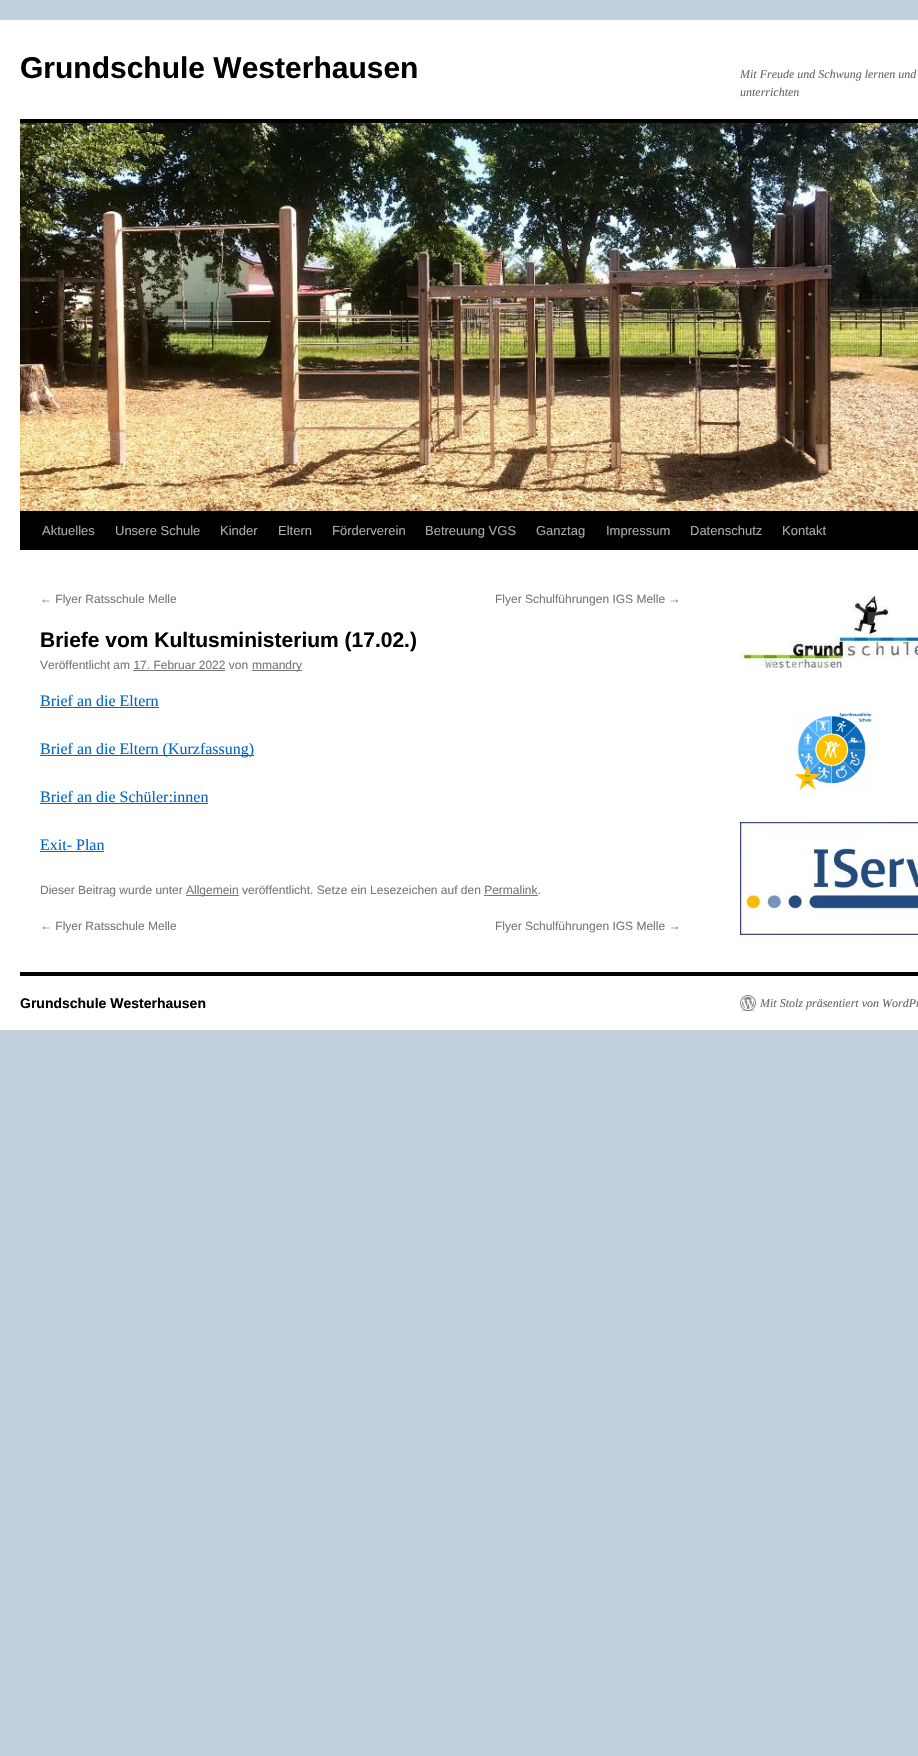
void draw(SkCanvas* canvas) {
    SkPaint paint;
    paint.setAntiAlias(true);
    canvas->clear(0xFFC1D0DD);
    paint.setColor(0xFFFFFFFF);
    canvas->drawRect(SkRect::MakeXYWH(0, 20, 918, 1010), paint);
    SkFont font1(fontMgr->matchFamilyStyle("Liberation Sans", SkFontStyle::Bold()), 30);
    font1.setSubpixel(true);
    paint.setColor(0xFF000000);
    canvas->drawString("Grundschule Westerhausen", 20, 78, font1, paint);
    SkFont font2(fontMgr->matchFamilyStyle("Liberation Serif", SkFontStyle::Italic()), 12);
    font2.setSubpixel(true);
    paint.setColor(0xFF666666);
    canvas->drawString("Mit Freude und Schwung lernen und", 740, 78, font2, paint);
    canvas->drawString("unterrichten", 740, 96, font2, paint);
    paint.setColor(0xFF000000);
    canvas->drawRect(SkRect::MakeXYWH(20, 119, 898, 4), paint);
    canvas->drawRect(SkRect::MakeXYWH(20, 511, 898, 39), paint);
    canvas->drawImageRect(SkImages::DeferredFromEncodedData(SkData::MakeFromFileName("img1.png")), SkRect::MakeXYWH(20, 123, 898, 388), SkSamplingOptions());
    SkFont font3(fontMgr->matchFamilyStyle("Liberation Sans", SkFontStyle::Normal()), 13);
    font3.setSubpixel(true);
    paint.setColor(0xFFAAAAAA);
    canvas->drawString("Aktuelles", 42, 535, font3, paint);
    canvas->drawString("Unsere Schule", 115, 535, font3, paint);
    canvas->drawString("Kinder", 220, 535, font3, paint);
    canvas->drawString("Eltern", 278, 535, font3, paint);
    canvas->drawString("Förderverein", 332, 535, font3, paint);
    canvas->drawString("Betreuung VGS", 425, 535, font3, paint);
    canvas->drawString("Ganztag", 536, 535, font3, paint);
    canvas->drawString("Impressum", 606, 535, font3, paint);
    canvas->drawString("Datenschutz", 690, 535, font3, paint);
    canvas->drawString("Kontakt", 782, 535, font3, paint);
    SkFont font4(fontMgr->matchFamilyStyle("Liberation Sans", SkFontStyle::Normal()), 12);
    font4.setSubpixel(true);
    paint.setColor(0xFF777777);
    canvas->drawString("← Flyer Ratsschule Melle", 40, 603, font4, paint);
    canvas->drawString("Flyer Schulführungen IGS Melle →", 495, 603, font4, paint);
    SkFont font5(fontMgr->matchFamilyStyle("Liberation Sans", SkFontStyle::Bold()), 21);
    font5.setSubpixel(true);
    paint.setColor(0xFF000000);
    canvas->drawString("Briefe vom Kultusministerium (17.02.)", 40, 647, font5, paint);
    paint.setColor(0xFF777777);
    canvas->drawString("Veröffentlicht am 17. Februar 2022 von", 40, 669, font4, paint);
    canvas->drawRect(SkRect::MakeXYWH(252, 670, 50, 1), paint);
    canvas->drawString("mmandry", 252, 669, font4, paint);
    canvas->drawRect(SkRect::MakeXYWH(133, 670, 92, 1), paint);
    SkFont font6(fontMgr->matchFamilyStyle("Liberation Serif", SkFontStyle::Normal()), 16);
    font6.setSubpixel(true);
    paint.setColor(0xFF0066CC);
    canvas->drawString("Brief an die Eltern", 40, 706, font6, paint);
    canvas->drawRect(SkRect::MakeXYWH(40, 707, 119, 1), paint);
    canvas->drawRect(SkRect::MakeXYWH(40, 755, 214, 1), paint);
    canvas->drawString("Brief an die Eltern (Kurzfassung)", 40, 754, font6, paint);
    canvas->drawString("Brief an die Schüler:innen", 40, 802, font6, paint);
    canvas->drawRect(SkRect::MakeXYWH(40, 803, 168, 1), paint);
    canvas->drawString("Exit- Plan", 40, 850, font6, paint);
    canvas->drawRect(SkRect::MakeXYWH(40, 851, 64, 1), paint);
    paint.setColor(0xFF777777);
    canvas->drawString("Dieser Beitrag wurde unter", 40, 894, font4, paint);
    canvas->drawRect(SkRect::MakeXYWH(186, 895, 53, 1), paint);
    canvas->drawString("Allgemein veröffentlicht. Setze ein Lesezeichen auf den Permalink.", 186, 894, font4, paint);
    canvas->drawRect(SkRect::MakeXYWH(484, 895, 54, 1), paint);
    canvas->drawString("← Flyer Ratsschule Melle", 40, 930, font4, paint);
    canvas->drawString("Flyer Schulführungen IGS Melle →", 495, 930, font4, paint);
    canvas->drawImageRect(SkImages::DeferredFromEncodedData(SkData::MakeFromFileName("img2.png")), SkRect::MakeXYWH(740, 595, 178, 74), SkSamplingOptions());
    canvas->drawImageRect(SkImages::DeferredFromEncodedData(SkData::MakeFromFileName("img3.png")), SkRect::MakeXYWH(794, 712, 78, 78), SkSamplingOptions());
    canvas->drawImageRect(SkImages::DeferredFromEncodedData(SkData::MakeFromFileName("img4.png")), SkRect::MakeXYWH(740, 822, 178, 113), SkSamplingOptions());
    paint.setColor(0xFF000000);
    canvas->drawRect(SkRect::MakeXYWH(20, 972, 898, 4), paint);
    SkFont font7(fontMgr->matchFamilyStyle("Liberation Sans", SkFontStyle::Bold()), 14);
    font7.setSubpixel(true);
    canvas->drawString("Grundschule Westerhausen", 20, 1008, font7, paint);
    canvas->drawImageRect(SkImages::DeferredFromEncodedData(SkData::MakeFromFileName("img5.png")), SkRect::MakeXYWH(740, 995, 16, 16), SkSamplingOptions());
    paint.setColor(0xFF666666);
    canvas->drawString("Mit Stolz präsentiert von WordPr", 760, 1007, font2, paint);
}
